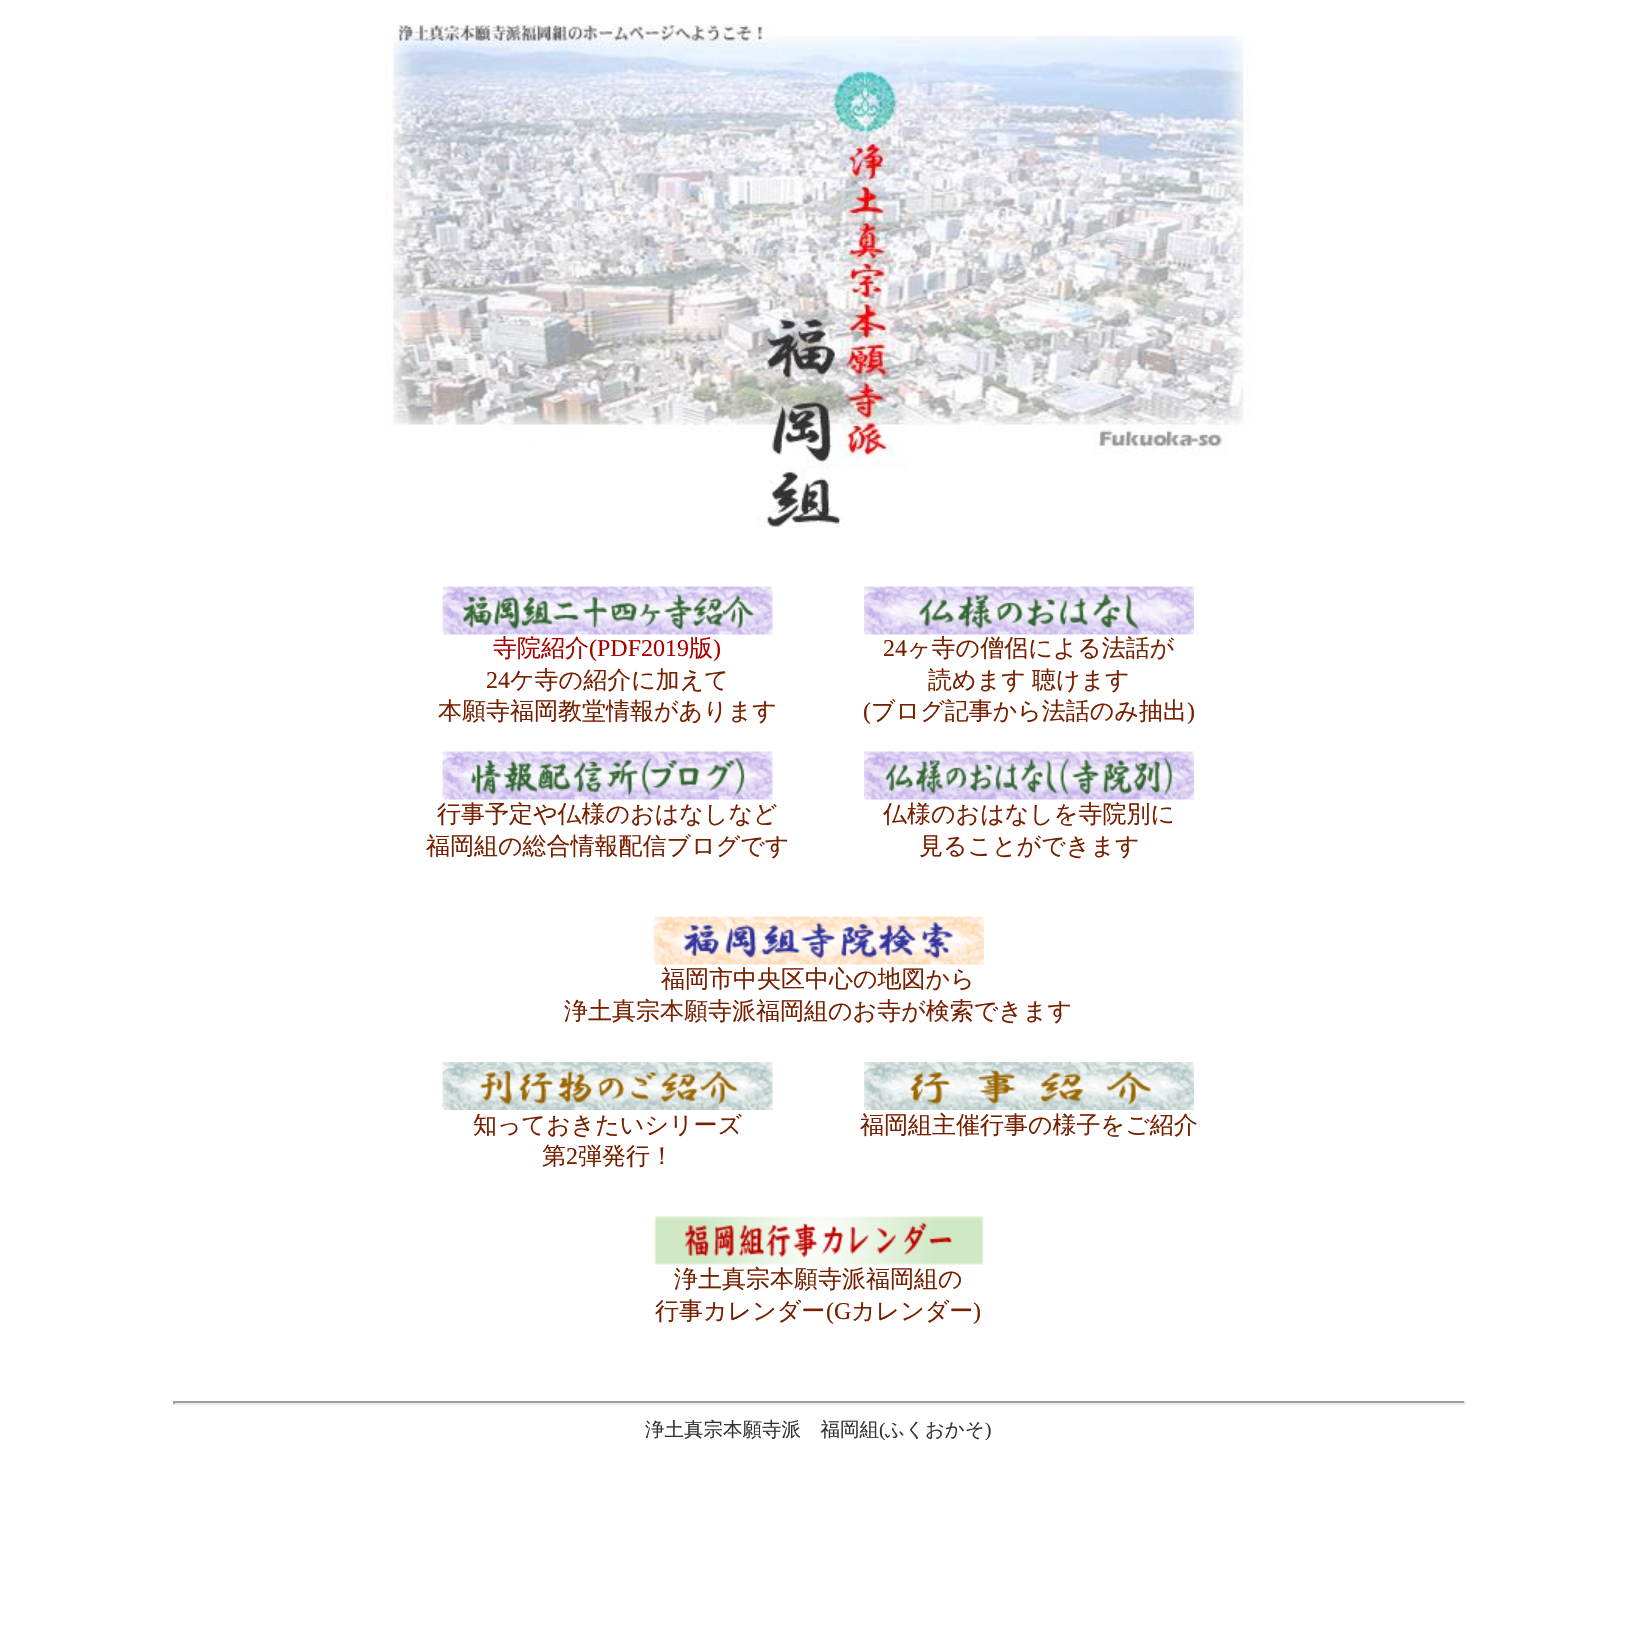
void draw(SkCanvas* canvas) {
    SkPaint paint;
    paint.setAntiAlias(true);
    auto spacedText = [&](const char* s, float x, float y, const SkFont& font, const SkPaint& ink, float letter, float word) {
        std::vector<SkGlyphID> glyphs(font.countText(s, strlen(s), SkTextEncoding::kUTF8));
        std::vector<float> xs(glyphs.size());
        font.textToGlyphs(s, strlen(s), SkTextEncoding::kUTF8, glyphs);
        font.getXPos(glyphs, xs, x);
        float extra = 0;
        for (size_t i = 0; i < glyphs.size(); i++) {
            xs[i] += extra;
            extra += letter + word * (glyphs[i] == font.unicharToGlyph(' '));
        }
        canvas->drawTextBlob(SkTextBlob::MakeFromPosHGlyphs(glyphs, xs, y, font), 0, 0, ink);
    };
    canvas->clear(0xFFFFFFFF);
    canvas->drawImageRect(SkImages::DeferredFromEncodedData(SkData::MakeFromFileName("img1.png")), SkRect::MakeXYWH(384, 24, 868, 504), SkSamplingOptions());
    canvas->drawImageRect(SkImages::DeferredFromEncodedData(SkData::MakeFromFileName("img2.png")), SkRect::MakeXYWH(442, 586, 331, 49), SkSamplingOptions());
    SkFont font1(fontMgr->matchFamilyStyle("WenQuanYi Zen Hei", SkFontStyle(500, SkFontStyle::kNormal_Width, SkFontStyle::kUpright_Slant)), 24);
    font1.setSubpixel(true);
    paint.setColor(0xFFAA0000);
    canvas->drawString("寺院紹介", 493, 656, font1, paint);
    SkFont font2(fontMgr->matchFamilyStyle("Liberation Serif", SkFontStyle::Normal()), 24);
    font2.setSubpixel(true);
    canvas->drawString("(PDF2019", 589, 656, font2, paint);
    canvas->drawString("版", 689, 656, font1, paint);
    canvas->drawString(")", 713, 656, font2, paint);
    paint.setColor(0xFF772000);
    canvas->drawString("24", 486, 688, font2, paint);
    canvas->drawString("ケ寺の紹介に加えて", 510, 688, font1, paint);
    canvas->drawString("本願寺福岡教堂情報があります", 438, 719, font1, paint);
    canvas->drawImageRect(SkImages::DeferredFromEncodedData(SkData::MakeFromFileName("img3.png")), SkRect::MakeXYWH(864, 586, 330, 49), SkSamplingOptions());
    canvas->drawString("24", 883, 656, font2, paint);
    canvas->drawString("ヶ寺の僧侶による法話が", 907, 656, font1, paint);
    spacedText("読めます 聴けます", 928, 688, font1, paint, 0, -1);
    canvas->drawString("(", 863, 719, font2, paint);
    canvas->drawString("ブログ記事から法話のみ抽出", 871, 719, font1, paint);
    canvas->drawString(")", 1187, 719, font2, paint);
    canvas->drawImageRect(SkImages::DeferredFromEncodedData(SkData::MakeFromFileName("img4.png")), SkRect::MakeXYWH(442, 751, 331, 49), SkSamplingOptions());
    canvas->drawString("行事予定や仏様のおはなしなど", 437, 822, font1, paint);
    canvas->drawString("福岡組の総合情報配信ブログです", 426, 854, font1, paint);
    canvas->drawImageRect(SkImages::DeferredFromEncodedData(SkData::MakeFromFileName("img5.png")), SkRect::MakeXYWH(864, 751, 330, 49), SkSamplingOptions());
    canvas->drawString("仏様のおはなしを寺院別に", 883, 822, font1, paint);
    canvas->drawString("見ることができます", 919, 854, font1, paint);
    canvas->drawImageRect(SkImages::DeferredFromEncodedData(SkData::MakeFromFileName("img6.png")), SkRect::MakeXYWH(654, 916, 330, 49), SkSamplingOptions());
    canvas->drawString("福岡市中央区中心の地図から", 661, 987, font1, paint);
    canvas->drawString("浄土真宗本願寺派福岡組のお寺が検索できます", 564, 1019, font1, paint);
    canvas->drawImageRect(SkImages::DeferredFromEncodedData(SkData::MakeFromFileName("img7.png")), SkRect::MakeXYWH(442, 1062, 331, 48), SkSamplingOptions());
    canvas->drawString("知っておきたいシリーズ", 473, 1133, font1, paint);
    canvas->drawString("第", 542, 1164, font1, paint);
    canvas->drawString("2", 566, 1164, font2, paint);
    canvas->drawString("弾発行！", 578, 1164, font1, paint);
    canvas->drawImageRect(SkImages::DeferredFromEncodedData(SkData::MakeFromFileName("img8.png")), SkRect::MakeXYWH(864, 1062, 330, 48), SkSamplingOptions());
    canvas->drawString("福岡組主催行事の様子をご紹介", 860, 1133, font1, paint);
    canvas->drawImageRect(SkImages::DeferredFromEncodedData(SkData::MakeFromFileName("img9.png")), SkRect::MakeXYWH(654, 1216, 330, 49), SkSamplingOptions());
    canvas->drawString("浄土真宗本願寺派福岡組の", 674, 1287, font1, paint);
    canvas->drawString("行事カレンダー", 655, 1319, font1, paint);
    canvas->drawString("(G", 826, 1319, font2, paint);
    canvas->drawString("カレンダー", 851, 1319, font1, paint);
    canvas->drawString(")", 973, 1319, font2, paint);
    paint.setColor(0xFF9F9F9F);
    canvas->drawRect(SkRect::MakeXYWH(173, 1401, 1293, 2), paint);
    paint.setColor(0xFFEEEEEE);
    canvas->drawRect(SkRect::MakeXYWH(1464, 1401, 2, 3), paint);
    canvas->drawRect(SkRect::MakeXYWH(173, 1403, 1293, 2), paint);
    paint.setColor(0xFF9F9F9F);
    canvas->drawRect(SkRect::MakeXYWH(173, 1401, 2, 3), paint);
    SkFont font3(fontMgr->matchFamilyStyle("WenQuanYi Zen Hei", SkFontStyle(500, SkFontStyle::kNormal_Width, SkFontStyle::kUpright_Slant)), 19.5f);
    font3.setSubpixel(true);
    paint.setColor(0xFF333333);
    canvas->drawString("浄土真宗本願寺派　福岡組", 645, 1436, font3, paint);
    SkFont font4(fontMgr->matchFamilyStyle("Liberation Serif", SkFontStyle::Normal()), 19.5f);
    font4.setSubpixel(true);
    canvas->drawString("(", 879, 1436, font4, paint);
    canvas->drawString("ふくおかそ", 885, 1436, font3, paint);
    canvas->drawString(")", 985, 1436, font4, paint);
}
